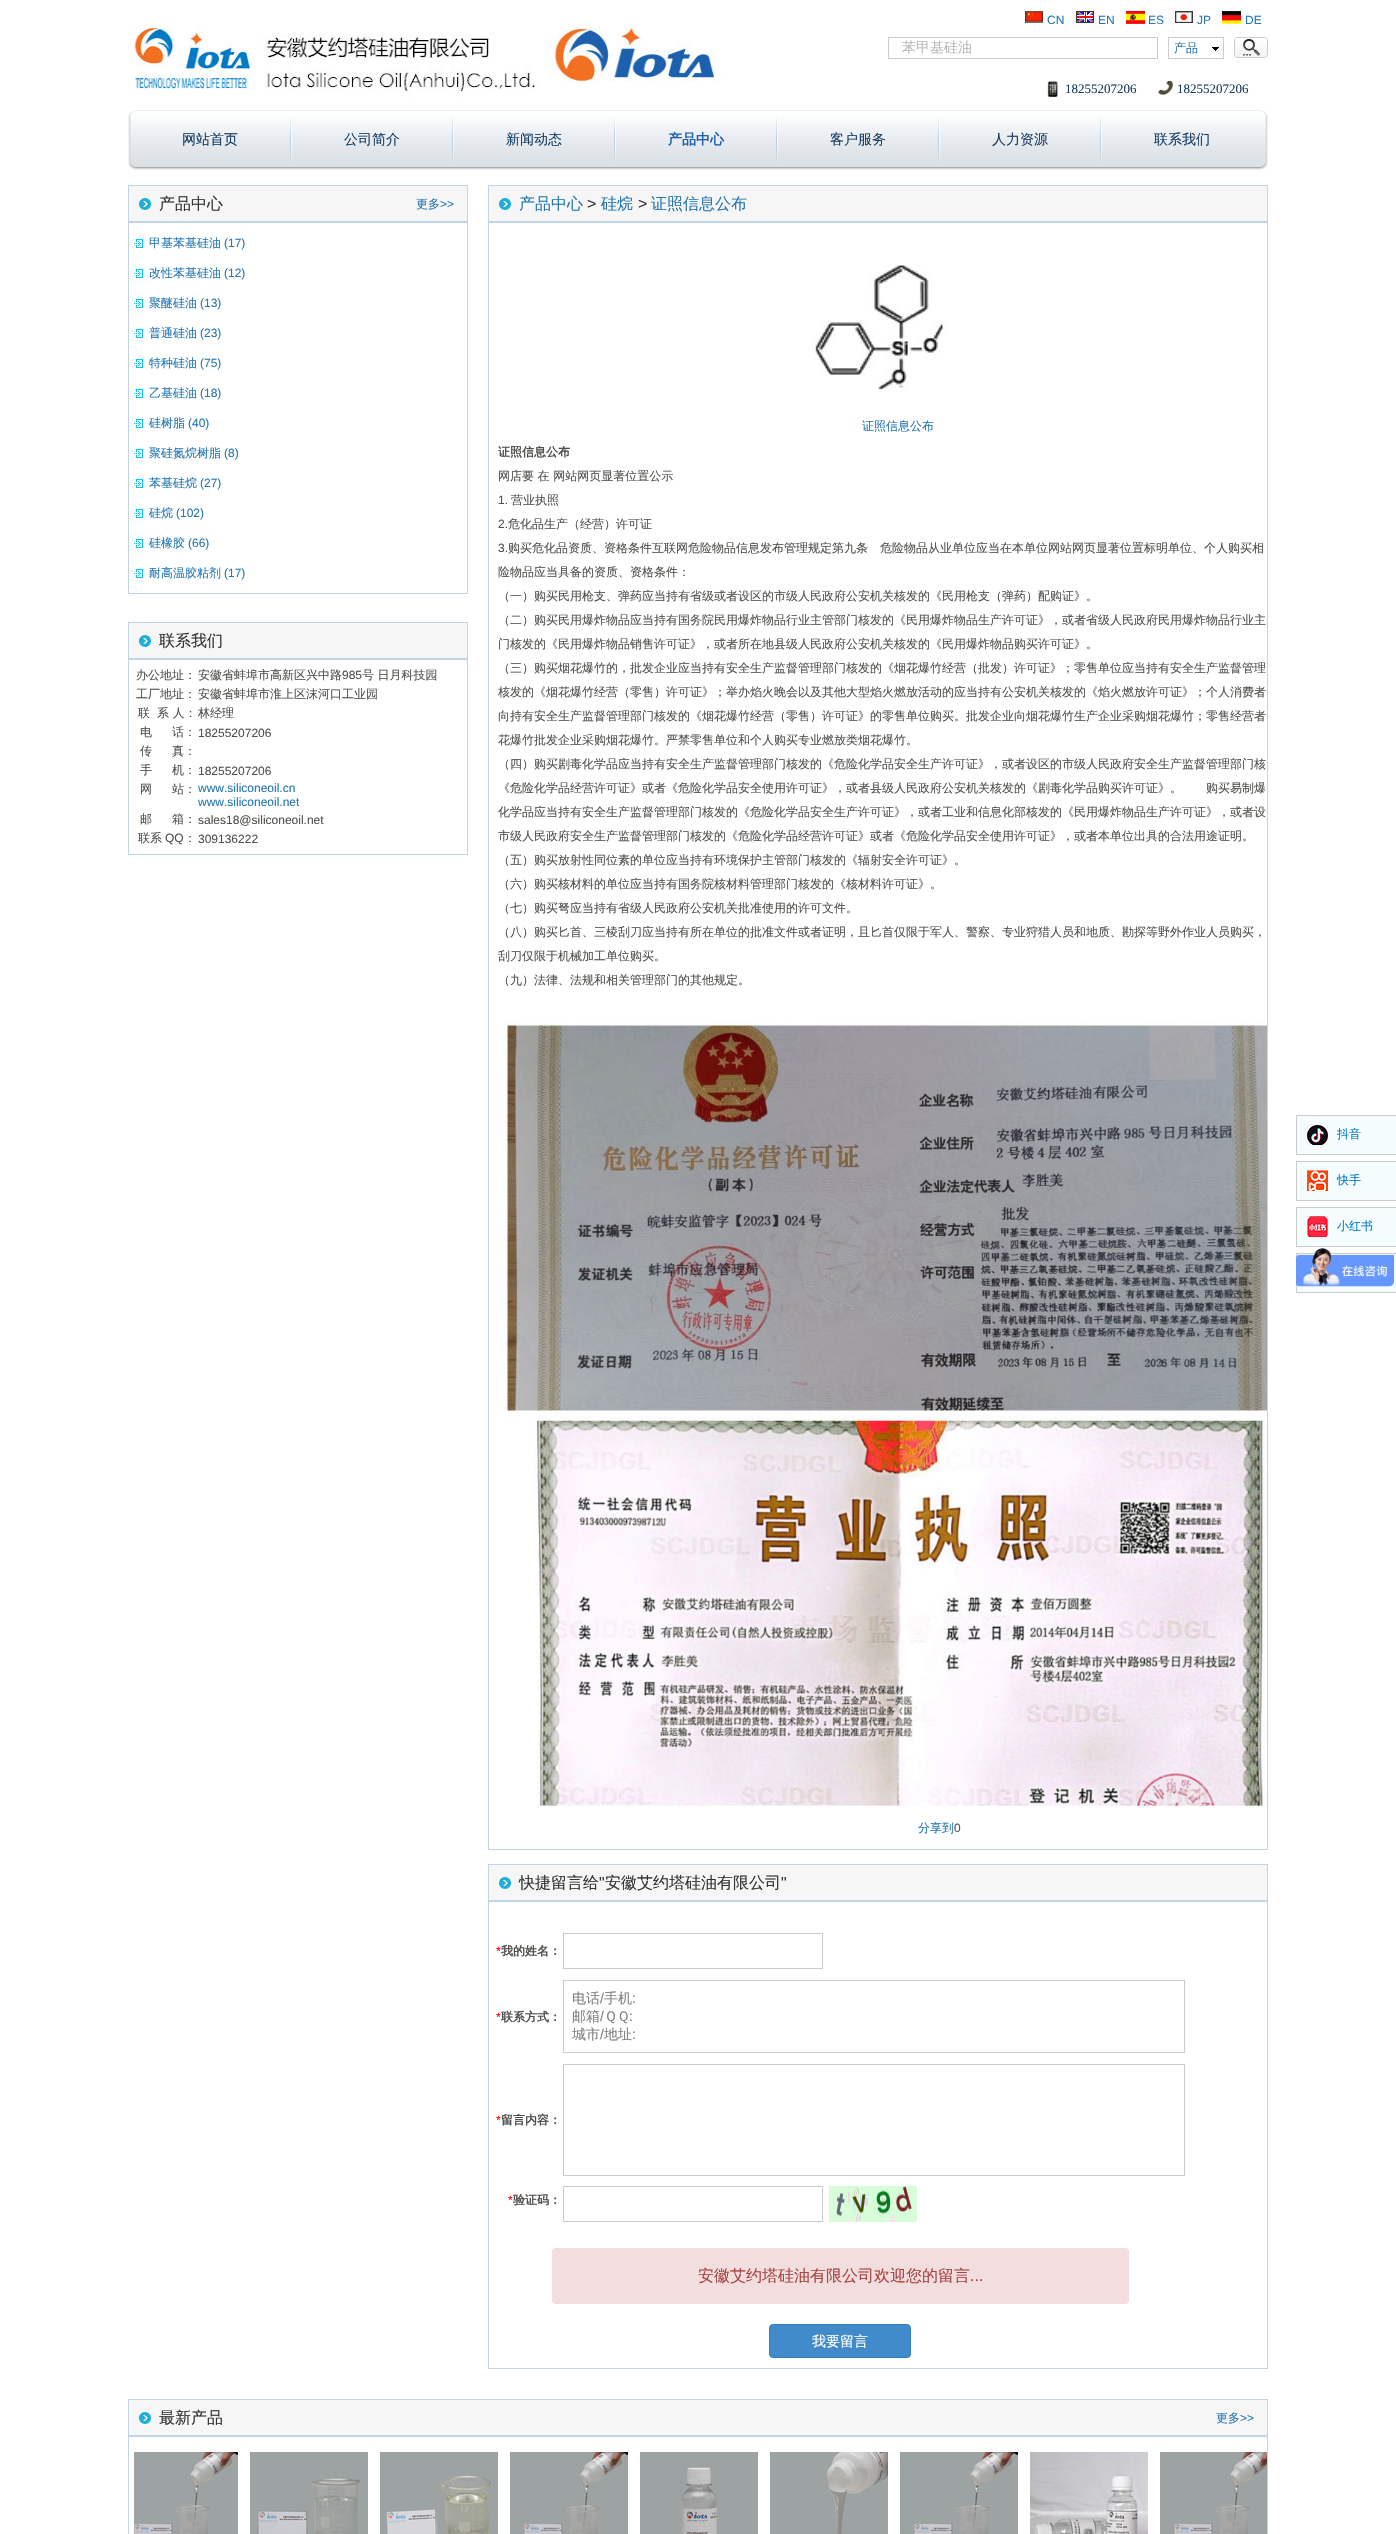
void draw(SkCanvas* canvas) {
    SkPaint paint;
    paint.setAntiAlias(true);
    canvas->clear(0xFFFFFFFF);
    canvas->drawImageRect(SkImages::DeferredFromEncodedData(SkData::MakeFromFileName("img1.png")), SkRect::MakeXYWH(130, 26, 591, 71), SkSamplingOptions());
    canvas->drawImageRect(SkImages::DeferredFromEncodedData(SkData::MakeFromFileName("img2.png")), SkRect::MakeXYWH(1025, 11, 18, 12), SkSamplingOptions());
    SkFont font1(fontMgr->matchFamilyStyle("Liberation Sans", SkFontStyle::Normal()), 12);
    font1.setSubpixel(true);
    paint.setColor(0xFF2477B3);
    canvas->drawString("CN", 1047, 24, font1, paint);
    canvas->drawImageRect(SkImages::DeferredFromEncodedData(SkData::MakeFromFileName("img3.png")), SkRect::MakeXYWH(1076, 11, 18, 12), SkSamplingOptions());
    canvas->drawString("EN", 1098, 24, font1, paint);
    canvas->drawImageRect(SkImages::DeferredFromEncodedData(SkData::MakeFromFileName("img4.png")), SkRect::MakeXYWH(1126, 11, 19, 13), SkSamplingOptions());
    canvas->drawString("ES", 1148, 24, font1, paint);
    canvas->drawImageRect(SkImages::DeferredFromEncodedData(SkData::MakeFromFileName("img5.png")), SkRect::MakeXYWH(1175, 11, 18, 12), SkSamplingOptions());
    canvas->drawString("JP", 1197, 24, font1, paint);
    canvas->drawImageRect(SkImages::DeferredFromEncodedData(SkData::MakeFromFileName("img6.png")), SkRect::MakeXYWH(1222, 11, 19, 13), SkSamplingOptions());
    canvas->drawString("DE", 1245, 24, font1, paint);
    paint.setStyle(SkPaint::kStroke_Style);
    paint.setStrokeWidth(1);
    paint.setColor(0xFFCCCCCC);
    canvas->drawRect(SkRect::MakeXYWH(888.5f, 37.5f, 269, 21), paint);
    SkFont font2(fontMgr->matchFamilyStyle("WenQuanYi Zen Hei", SkFontStyle(500, SkFontStyle::kNormal_Width, SkFontStyle::kUpright_Slant)), 14);
    font2.setSubpixel(true);
    paint.setStyle(SkPaint::kFill_Style);
    paint.setColor(0xFFB9B9B9);
    canvas->drawString("苯甲基硅油", 902, 52, font2, paint);
    paint.setStyle(SkPaint::kStroke_Style);
    paint.setColor(0xFFCCCCCC);
    canvas->drawRect(SkRect::MakeXYWH(1168.5f, 37.5f, 55, 21), paint);
    SkFont font3(fontMgr->matchFamilyStyle("WenQuanYi Zen Hei", SkFontStyle(500, SkFontStyle::kNormal_Width, SkFontStyle::kUpright_Slant)), 12);
    font3.setSubpixel(true);
    paint.setStyle(SkPaint::kFill_Style);
    paint.setColor(0xFF2477B3);
    canvas->drawString("产品", 1174, 52, font3, paint);
    canvas->drawImageRect(SkImages::DeferredFromEncodedData(SkData::MakeFromFileName("img7.png")), SkRect::MakeXYWH(1212, 47, 7, 4), SkSamplingOptions());
    canvas->drawImageRect(SkImages::DeferredFromEncodedData(SkData::MakeFromFileName("img8.png")), SkRect::MakeXYWH(1234, 37, 34, 21), SkSamplingOptions());
    canvas->drawImageRect(SkImages::DeferredFromEncodedData(SkData::MakeFromFileName("img9.png")), SkRect::MakeXYWH(1047, 81, 11, 16), SkSamplingOptions());
    SkFont font4(fontMgr->matchFamilyStyle("Liberation Serif", SkFontStyle::Normal()), 13);
    font4.setSubpixel(true);
    paint.setColor(0xFF163D64);
    canvas->drawString("18255207206", 1065, 93, font4, paint);
    canvas->drawImageRect(SkImages::DeferredFromEncodedData(SkData::MakeFromFileName("img10.png")), SkRect::MakeXYWH(1158, 81, 16, 14), SkSamplingOptions());
    canvas->drawString("18255207206", 1177, 93, font4, paint);
    canvas->drawImageRect(SkImages::DeferredFromEncodedData(SkData::MakeFromFileName("img11.png")), SkRect::MakeXYWH(128, 110, 1140, 60), SkSamplingOptions());
    canvas->drawImageRect(SkImages::DeferredFromEncodedData(SkData::MakeFromFileName("img12.png")), SkRect::MakeXYWH(290, 116, 2, 49), SkSamplingOptions());
    canvas->drawString("网站首页", 182, 144, font2, paint);
    canvas->drawImageRect(SkImages::DeferredFromEncodedData(SkData::MakeFromFileName("img12.png")), SkRect::MakeXYWH(452, 116, 2, 49), SkSamplingOptions());
    canvas->drawString("公司简介", 344, 144, font2, paint);
    canvas->drawImageRect(SkImages::DeferredFromEncodedData(SkData::MakeFromFileName("img12.png")), SkRect::MakeXYWH(614, 116, 2, 49), SkSamplingOptions());
    canvas->drawString("新闻动态", 506, 144, font2, paint);
    canvas->drawImageRect(SkImages::DeferredFromEncodedData(SkData::MakeFromFileName("img12.png")), SkRect::MakeXYWH(776, 116, 2, 49), SkSamplingOptions());
    SkFont font5(fontMgr->matchFamilyStyle("WenQuanYi Zen Hei", SkFontStyle::Bold()), 14);
    font5.setSubpixel(true);
    paint.setColor(0xFF2262AD);
    canvas->drawString("产品中心", 668, 144, font5, paint);
    canvas->drawImageRect(SkImages::DeferredFromEncodedData(SkData::MakeFromFileName("img12.png")), SkRect::MakeXYWH(938, 116, 2, 49), SkSamplingOptions());
    paint.setColor(0xFF163D64);
    canvas->drawString("客户服务", 830, 144, font2, paint);
    canvas->drawImageRect(SkImages::DeferredFromEncodedData(SkData::MakeFromFileName("img12.png")), SkRect::MakeXYWH(1100, 116, 2, 49), SkSamplingOptions());
    canvas->drawString("人力资源", 992, 144, font2, paint);
    canvas->drawString("联系我们", 1154, 144, font2, paint);
    paint.setColor(0xFFF6F6F6);
    canvas->drawRect(SkRect::MakeXYWH(128.5f, 185.5f, 339, 36), paint);
    paint.setStyle(SkPaint::kStroke_Style);
    paint.setColor(0xFFC2D4E8);
    canvas->drawRect(SkRect::MakeXYWH(128.5f, 185.5f, 339, 36), paint);
    canvas->drawImageRect(SkImages::DeferredFromEncodedData(SkData::MakeFromFileName("img13.png")), SkRect::MakeXYWH(139, 197, 12, 14), SkSamplingOptions());
    SkFont font6(fontMgr->matchFamilyStyle("WenQuanYi Zen Hei", SkFontStyle(500, SkFontStyle::kNormal_Width, SkFontStyle::kUpright_Slant)), 16);
    font6.setSubpixel(true);
    paint.setStyle(SkPaint::kFill_Style);
    paint.setColor(0xFF333333);
    canvas->drawString("产品中心", 159, 209, font6, paint);
    paint.setColor(0xFF2477B3);
    canvas->drawString("更多", 416, 208, font3, paint);
    canvas->drawString(">>", 440, 208, font1, paint);
    paint.setStyle(SkPaint::kStroke_Style);
    paint.setColor(0xFFC2D4E8);
    canvas->drawRect(SkRect::MakeXYWH(128.5f, 222.5f, 339, 371), paint);
    canvas->drawImageRect(SkImages::DeferredFromEncodedData(SkData::MakeFromFileName("img14.png")), SkRect::MakeXYWH(134, 239, 9, 9), SkSamplingOptions());
    paint.setStyle(SkPaint::kFill_Style);
    paint.setColor(0xFF2477B3);
    canvas->drawString("甲基苯基硅油", 149, 247, font3, paint);
    canvas->drawString("(17)", 224, 247, font1, paint);
    canvas->drawImageRect(SkImages::DeferredFromEncodedData(SkData::MakeFromFileName("img14.png")), SkRect::MakeXYWH(134, 269, 9, 9), SkSamplingOptions());
    canvas->drawString("改性苯基硅油", 149, 277, font3, paint);
    canvas->drawString("(12)", 224, 277, font1, paint);
    canvas->drawImageRect(SkImages::DeferredFromEncodedData(SkData::MakeFromFileName("img14.png")), SkRect::MakeXYWH(134, 299, 9, 9), SkSamplingOptions());
    canvas->drawString("聚醚硅油", 149, 307, font3, paint);
    canvas->drawString("(13)", 200, 307, font1, paint);
    canvas->drawImageRect(SkImages::DeferredFromEncodedData(SkData::MakeFromFileName("img14.png")), SkRect::MakeXYWH(134, 329, 9, 9), SkSamplingOptions());
    canvas->drawString("普通硅油", 149, 337, font3, paint);
    canvas->drawString("(23)", 200, 337, font1, paint);
    canvas->drawImageRect(SkImages::DeferredFromEncodedData(SkData::MakeFromFileName("img14.png")), SkRect::MakeXYWH(134, 359, 9, 9), SkSamplingOptions());
    canvas->drawString("特种硅油", 149, 367, font3, paint);
    canvas->drawString("(75)", 200, 367, font1, paint);
    canvas->drawImageRect(SkImages::DeferredFromEncodedData(SkData::MakeFromFileName("img14.png")), SkRect::MakeXYWH(134, 389, 9, 9), SkSamplingOptions());
    canvas->drawString("乙基硅油", 149, 397, font3, paint);
    canvas->drawString("(18)", 200, 397, font1, paint);
    canvas->drawImageRect(SkImages::DeferredFromEncodedData(SkData::MakeFromFileName("img14.png")), SkRect::MakeXYWH(134, 419, 9, 9), SkSamplingOptions());
    canvas->drawString("硅树脂", 149, 427, font3, paint);
    canvas->drawString("(40)", 188, 427, font1, paint);
    canvas->drawImageRect(SkImages::DeferredFromEncodedData(SkData::MakeFromFileName("img14.png")), SkRect::MakeXYWH(134, 449, 9, 9), SkSamplingOptions());
    canvas->drawString("聚硅氮烷树脂", 149, 457, font3, paint);
    canvas->drawString("(8)", 224, 457, font1, paint);
    canvas->drawImageRect(SkImages::DeferredFromEncodedData(SkData::MakeFromFileName("img14.png")), SkRect::MakeXYWH(134, 479, 9, 9), SkSamplingOptions());
    canvas->drawString("苯基硅烷", 149, 487, font3, paint);
    canvas->drawString("(27)", 200, 487, font1, paint);
    canvas->drawImageRect(SkImages::DeferredFromEncodedData(SkData::MakeFromFileName("img14.png")), SkRect::MakeXYWH(134, 509, 9, 9), SkSamplingOptions());
    canvas->drawString("硅烷", 149, 517, font3, paint);
    canvas->drawString("(102)", 176, 517, font1, paint);
    canvas->drawImageRect(SkImages::DeferredFromEncodedData(SkData::MakeFromFileName("img14.png")), SkRect::MakeXYWH(134, 539, 9, 9), SkSamplingOptions());
    canvas->drawString("硅橡胶", 149, 547, font3, paint);
    canvas->drawString("(66)", 188, 547, font1, paint);
    canvas->drawImageRect(SkImages::DeferredFromEncodedData(SkData::MakeFromFileName("img14.png")), SkRect::MakeXYWH(134, 569, 9, 9), SkSamplingOptions());
    canvas->drawString("耐高温胶粘剂", 149, 577, font3, paint);
    canvas->drawString("(17)", 224, 577, font1, paint);
    paint.setColor(0xFFF6F6F6);
    canvas->drawRect(SkRect::MakeXYWH(128.5f, 622.5f, 339, 36), paint);
    paint.setStyle(SkPaint::kStroke_Style);
    paint.setColor(0xFFC2D4E8);
    canvas->drawRect(SkRect::MakeXYWH(128.5f, 622.5f, 339, 36), paint);
    canvas->drawImageRect(SkImages::DeferredFromEncodedData(SkData::MakeFromFileName("img13.png")), SkRect::MakeXYWH(139, 634, 12, 14), SkSamplingOptions());
    paint.setStyle(SkPaint::kFill_Style);
    paint.setColor(0xFF333333);
    canvas->drawString("联系我们", 159, 646, font6, paint);
    paint.setStyle(SkPaint::kStroke_Style);
    paint.setColor(0xFFC2D4E8);
    canvas->drawRect(SkRect::MakeXYWH(128.5f, 659.5f, 339, 195), paint);
    paint.setStyle(SkPaint::kFill_Style);
    paint.setColor(0xFF51504D);
    canvas->drawString("办公地址：", 136, 679, font3, paint);
    canvas->drawString("安徽省蚌埠市高新区兴中路", 198, 679, font3, paint);
    canvas->drawString("985", 342, 679, font1, paint);
    canvas->drawString("号 日月科技园", 362, 679, font3, paint);
    canvas->drawString("工厂地址：", 136, 698, font3, paint);
    canvas->drawString("安徽省蚌埠市淮上区沫河口工业园", 198, 698, font3, paint);
    canvas->drawString("联", 138, 717, font3, paint);
    canvas->drawString("系 人：", 157, 717, font3, paint);
    canvas->drawString("林经理", 198, 717, font3, paint);
    canvas->drawString("电", 140, 736, font3, paint);
    canvas->drawString("话：", 172, 736, font3, paint);
    canvas->drawString("18255207206", 198, 737, font1, paint);
    canvas->drawString("传", 140, 755, font3, paint);
    canvas->drawString("真：", 172, 755, font3, paint);
    canvas->drawString("手", 140, 774, font3, paint);
    canvas->drawString("机：", 172, 774, font3, paint);
    canvas->drawString("18255207206", 198, 775, font1, paint);
    canvas->drawString("网", 140, 793, font3, paint);
    canvas->drawString("站：", 172, 793, font3, paint);
    paint.setColor(0xFF2477B3);
    canvas->drawString("www.siliconeoil.cn", 198, 792, font1, paint);
    canvas->drawString("www.siliconeoil.net", 198, 806, font1, paint);
    paint.setColor(0xFF51504D);
    canvas->drawString("邮", 140, 823, font3, paint);
    canvas->drawString("箱：", 172, 823, font3, paint);
    canvas->drawString("sales18@siliconeoil.net", 198, 824, font1, paint);
    canvas->drawString("联系", 138, 842, font3, paint);
    canvas->drawString("QQ", 165, 842, font1, paint);
    canvas->drawString("：", 184, 842, font3, paint);
    canvas->drawString("309136222", 198, 843, font1, paint);
    paint.setColor(0xFFF6F6F6);
    canvas->drawRect(SkRect::MakeXYWH(488.5f, 185.5f, 779, 36), paint);
    paint.setStyle(SkPaint::kStroke_Style);
    paint.setColor(0xFFC2D4E8);
    canvas->drawRect(SkRect::MakeXYWH(488.5f, 185.5f, 779, 36), paint);
    canvas->drawImageRect(SkImages::DeferredFromEncodedData(SkData::MakeFromFileName("img13.png")), SkRect::MakeXYWH(499, 197, 12, 14), SkSamplingOptions());
    paint.setStyle(SkPaint::kFill_Style);
    paint.setColor(0xFF2477B3);
    canvas->drawString("产品中心", 519, 209, font6, paint);
    SkFont font7(fontMgr->matchFamilyStyle("Liberation Sans", SkFontStyle::Normal()), 16);
    font7.setSubpixel(true);
    paint.setColor(0xFF333333);
    canvas->drawString(">", 587, 209, font7, paint);
    paint.setColor(0xFF2477B3);
    canvas->drawString("硅烷", 601, 209, font6, paint);
    paint.setColor(0xFF333333);
    canvas->drawString(">", 638, 209, font7, paint);
    paint.setColor(0xFF2477B3);
    canvas->drawString("证照信息公布", 651, 209, font6, paint);
    paint.setStyle(SkPaint::kStroke_Style);
    paint.setColor(0xFFC2D4E8);
    canvas->drawRect(SkRect::MakeXYWH(488.5f, 222.5f, 779, 1627), paint);
    canvas->drawImageRect(SkImages::DeferredFromEncodedData(SkData::MakeFromFileName("img15.png")), SkRect::MakeXYWH(812, 264, 135, 128), SkSamplingOptions());
    paint.setStyle(SkPaint::kFill_Style);
    paint.setColor(0xFF2477B3);
    canvas->drawString("证照信息公布", 862, 430, font3, paint);
    SkFont font8(fontMgr->matchFamilyStyle("WenQuanYi Zen Hei", SkFontStyle::Bold()), 12);
    font8.setSubpixel(true);
    paint.setColor(0xFF51504D);
    canvas->drawString("证照信息公布", 498, 456, font8, paint);
    canvas->drawString("网店要 在 网站网页显著位置公示", 498, 480, font3, paint);
    canvas->drawString("1.", 498, 504, font1, paint);
    canvas->drawString("营业执照", 511, 504, font3, paint);
    canvas->drawString("2.", 498, 528, font1, paint);
    canvas->drawString("危化品生产（经营）许可证", 508, 528, font3, paint);
    canvas->drawString("3.", 498, 552, font1, paint);
    canvas->drawString("购买危化品资质、资格条件互联网危险物品信息发布管理规定第九条　危险物品从业单位应当在本单位网站网页显著位置标明单位、个人购买相", 508, 552, font3, paint);
    canvas->drawString("险物品应当具备的资质、资格条件：", 498, 576, font3, paint);
    canvas->drawString("（一）购买民用枪支、弹药应当持有省级或者设区的市级人民政府公安机关核发的《民用枪支（弹药）配购证》。", 498, 600, font3, paint);
    canvas->drawString("（二）购买民用爆炸物品应当持有国务院民用爆炸物品行业主管部门核发的《民用爆炸物品生产许可证》，或者省级人民政府民用爆炸物品行业主", 498, 624, font3, paint);
    canvas->drawString("门核发的《民用爆炸物品销售许可证》，或者所在地县级人民政府公安机关核发的《民用爆炸物品购买许可证》。", 498, 648, font3, paint);
    canvas->drawString("（三）购买烟花爆竹的，批发企业应当持有安全生产监督管理部门核发的《烟花爆竹经营（批发）许可证》；零售单位应当持有安全生产监督管理", 498, 672, font3, paint);
    canvas->drawString("核发的《烟花爆竹经营（零售）许可证》；举办焰火晚会以及其他大型焰火燃放活动的应当持有公安机关核发的《焰火燃放许可证》；个人消费者", 498, 696, font3, paint);
    canvas->drawString("向持有安全生产监督管理部门核发的《烟花爆竹经营（零售）许可证》的零售单位购买。批发企业向烟花爆竹生产企业采购烟花爆竹；零售经营者", 498, 720, font3, paint);
    canvas->drawString("花爆竹批发企业采购烟花爆竹。严禁零售单位和个人购买专业燃放类烟花爆竹。", 498, 744, font3, paint);
    canvas->drawString("（四）购买剧毒化学品应当持有安全生产监督管理部门核发的《危险化学品安全生产许可证》，或者设区的市级人民政府安全生产监督管理部门核", 498, 768, font3, paint);
    canvas->drawString("《危险化学品经营许可证》或者《危险化学品安全使用许可证》，或者县级人民政府公安机关核发的《剧毒化学品购买许可证》。　　购买易制爆", 498, 792, font3, paint);
    canvas->drawString("化学品应当持有安全生产监督管理部门核发的《危险化学品安全生产许可证》，或者工业和信息化部核发的《民用爆炸物品生产许可证》，或者设", 498, 816, font3, paint);
    canvas->drawString("市级人民政府安全生产监督管理部门核发的《危险化学品经营许可证》或者《危险化学品安全使用许可证》，或者本单位出具的合法用途证明。", 498, 840, font3, paint);
    canvas->drawString("（五）购买放射性同位素的单位应当持有环境保护主管部门核发的《辐射安全许可证》。", 498, 864, font3, paint);
    canvas->drawString("（六）购买核材料的单位应当持有国务院核材料管理部门核发的《核材料许可证》。", 498, 888, font3, paint);
    canvas->drawString("（七）购买弩应当持有省级人民政府公安机关批准使用的许可文件。", 498, 912, font3, paint);
    canvas->drawString("（八）购买匕首、三棱刮刀应当持有所在单位的批准文件或者证明，且匕首仅限于军人、警察、专业狩猎人员和地质、勘探等野外作业人员购买，", 498, 936, font3, paint);
    canvas->drawString("刮刀仅限于机械加工单位购买。", 498, 960, font3, paint);
    canvas->drawString("（九）法律、法规和相关管理部门的其他规定。", 498, 984, font3, paint);
    canvas->drawImageRect(SkImages::DeferredFromEncodedData(SkData::MakeFromFileName("img16.png")), SkRect::MakeXYWH(503, 1021, 764, 786), SkSamplingOptions());
    paint.setColor(0xFF2477B3);
    canvas->drawString("分享到", 918, 1832, font3, paint);
    paint.setColor(0xFF51504D);
    canvas->drawString("0", 954, 1832, font1, paint);
    paint.setColor(0xFFF6F6F6);
    canvas->drawRect(SkRect::MakeXYWH(488.5f, 1864.5f, 779, 36), paint);
    paint.setStyle(SkPaint::kStroke_Style);
    paint.setColor(0xFFC2D4E8);
    canvas->drawRect(SkRect::MakeXYWH(488.5f, 1864.5f, 779, 36), paint);
    canvas->drawImageRect(SkImages::DeferredFromEncodedData(SkData::MakeFromFileName("img13.png")), SkRect::MakeXYWH(499, 1876, 12, 14), SkSamplingOptions());
    paint.setStyle(SkPaint::kFill_Style);
    paint.setColor(0xFF333333);
    canvas->drawString("快捷留言给", 519, 1888, font6, paint);
    canvas->drawString("\"", 599, 1888, font7, paint);
    canvas->drawString("安徽艾约塔硅油有限公司", 605, 1888, font6, paint);
    canvas->drawString("\"", 781, 1888, font7, paint);
    paint.setStyle(SkPaint::kStroke_Style);
    paint.setColor(0xFFC2D4E8);
    canvas->drawRect(SkRect::MakeXYWH(488.5f, 1901.5f, 779, 467), paint);
    paint.setStyle(SkPaint::kFill_Style);
    paint.setColor(0xFFFF0000);
    canvas->drawString("*", 496, 1955, font1, paint);
    paint.setColor(0xFF51504D);
    canvas->drawString("我的姓名：", 501, 1955, font8, paint);
    paint.setStyle(SkPaint::kStroke_Style);
    paint.setColor(0xFFCCCCCC);
    canvas->drawRect(SkRect::MakeXYWH(563.5f, 1933.5f, 259, 35), paint);
    paint.setStyle(SkPaint::kFill_Style);
    paint.setColor(0xFFFF0000);
    canvas->drawString("*", 496, 2021, font1, paint);
    paint.setColor(0xFF51504D);
    canvas->drawString("联系方式：", 501, 2021, font8, paint);
    paint.setStyle(SkPaint::kStroke_Style);
    paint.setColor(0xFFCCCCCC);
    canvas->drawRect(SkRect::MakeXYWH(563.5f, 1980.5f, 621, 72), paint);
    paint.setStyle(SkPaint::kFill_Style);
    paint.setColor(0xFF808080);
    canvas->drawString("电话", 572, 2003, font2, paint);
    SkFont font9(fontMgr->matchFamilyStyle("Liberation Sans", SkFontStyle::Normal()), 14);
    font9.setSubpixel(true);
    canvas->drawString("/", 600, 2003, font9, paint);
    canvas->drawString("手机", 604, 2003, font2, paint);
    canvas->drawString(":", 632, 2003, font9, paint);
    canvas->drawString("邮箱", 572, 2021, font2, paint);
    canvas->drawString("/", 600, 2021, font9, paint);
    canvas->drawString("ＱＱ", 604, 2021, font2, paint);
    canvas->drawString(":", 629, 2021, font9, paint);
    canvas->drawString("城市", 572, 2039, font2, paint);
    canvas->drawString("/", 600, 2039, font9, paint);
    canvas->drawString("地址", 604, 2039, font2, paint);
    canvas->drawString(":", 632, 2039, font9, paint);
    paint.setColor(0xFFFF0000);
    canvas->drawString("*", 496, 2124, font1, paint);
    paint.setColor(0xFF51504D);
    canvas->drawString("留言内容：", 501, 2124, font8, paint);
    paint.setStyle(SkPaint::kStroke_Style);
    paint.setColor(0xFFCCCCCC);
    canvas->drawRect(SkRect::MakeXYWH(563.5f, 2064.5f, 621, 111), paint);
    paint.setStyle(SkPaint::kFill_Style);
    paint.setColor(0xFFFF0000);
    canvas->drawString("*", 508, 2204, font1, paint);
    paint.setColor(0xFF51504D);
    canvas->drawString("验证码：", 513, 2204, font8, paint);
    paint.setStyle(SkPaint::kStroke_Style);
    paint.setColor(0xFFCCCCCC);
    canvas->drawRect(SkRect::MakeXYWH(563.5f, 2186.5f, 259, 35), paint);
    canvas->drawImageRect(SkImages::DeferredFromEncodedData(SkData::MakeFromFileName("img17.png")), SkRect::MakeXYWH(829, 2186, 88, 36), SkSamplingOptions());
    paint.setStyle(SkPaint::kFill_Style);
    paint.setColor(0xFFF2DEDE);
    canvas->drawRoundRect(SkRect::MakeXYWH(552, 2248, 577, 56), 4, 4, paint);
    paint.setColor(0xFFA94442);
    canvas->drawString("安徽艾约塔硅油有限公司欢迎您的留言", 698, 2281, font6, paint);
    canvas->drawString("...", 970, 2281, font7, paint);
    paint.setColor(0xFF428BCA);
    canvas->drawRoundRect(SkRect::MakeXYWH(769.5f, 2324.5f, 141, 33), 3.5f, 3.5f, paint);
    paint.setStyle(SkPaint::kStroke_Style);
    paint.setColor(0xFF357EBD);
    canvas->drawRoundRect(SkRect::MakeXYWH(769.5f, 2324.5f, 141, 33), 3.5f, 3.5f, paint);
    paint.setStyle(SkPaint::kFill_Style);
    paint.setColor(0xFFFFFFFF);
    canvas->drawString("我要留言", 812, 2346, font2, paint);
    paint.setColor(0xFFF6F6F6);
    canvas->drawRect(SkRect::MakeXYWH(128.5f, 2399.5f, 1139, 36), paint);
    paint.setStyle(SkPaint::kStroke_Style);
    paint.setColor(0xFFC2D4E8);
    canvas->drawRect(SkRect::MakeXYWH(128.5f, 2399.5f, 1139, 36), paint);
    canvas->drawImageRect(SkImages::DeferredFromEncodedData(SkData::MakeFromFileName("img13.png")), SkRect::MakeXYWH(139, 2411, 12, 14), SkSamplingOptions());
    paint.setStyle(SkPaint::kFill_Style);
    paint.setColor(0xFF333333);
    canvas->drawString("最新产品", 159, 2423, font6, paint);
    paint.setColor(0xFF2477B3);
    canvas->drawString("更多", 1216, 2422, font3, paint);
    canvas->drawString(">>", 1240, 2422, font1, paint);
    paint.setStyle(SkPaint::kStroke_Style);
    paint.setColor(0xFFC2D4E8);
    canvas->drawRect(SkRect::MakeXYWH(128.5f, 2436.5f, 1139, 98), paint);
    canvas->drawImageRect(SkImages::DeferredFromEncodedData(SkData::MakeFromFileName("img18.png")), SkRect::MakeXYWH(134, 2452, 104, 82), SkSamplingOptions());
    canvas->drawImageRect(SkImages::DeferredFromEncodedData(SkData::MakeFromFileName("img19.png")), SkRect::MakeXYWH(250, 2452, 118, 82), SkSamplingOptions());
    canvas->drawImageRect(SkImages::DeferredFromEncodedData(SkData::MakeFromFileName("img20.png")), SkRect::MakeXYWH(380, 2452, 118, 82), SkSamplingOptions());
    canvas->drawImageRect(SkImages::DeferredFromEncodedData(SkData::MakeFromFileName("img21.png")), SkRect::MakeXYWH(510, 2452, 118, 82), SkSamplingOptions());
    canvas->drawImageRect(SkImages::DeferredFromEncodedData(SkData::MakeFromFileName("img22.png")), SkRect::MakeXYWH(640, 2452, 118, 82), SkSamplingOptions());
    canvas->drawImageRect(SkImages::DeferredFromEncodedData(SkData::MakeFromFileName("img23.png")), SkRect::MakeXYWH(770, 2452, 118, 82), SkSamplingOptions());
    canvas->drawImageRect(SkImages::DeferredFromEncodedData(SkData::MakeFromFileName("img21.png")), SkRect::MakeXYWH(900, 2452, 118, 82), SkSamplingOptions());
    canvas->drawImageRect(SkImages::DeferredFromEncodedData(SkData::MakeFromFileName("img24.png")), SkRect::MakeXYWH(1030, 2452, 118, 82), SkSamplingOptions());
    canvas->drawImageRect(SkImages::DeferredFromEncodedData(SkData::MakeFromFileName("img25.png")), SkRect::MakeXYWH(1160, 2452, 107, 82), SkSamplingOptions());
    paint.setStyle(SkPaint::kFill_Style);
    paint.setColor(0xFFF4FCFE);
    canvas->drawRect(SkRect::MakeXYWH(1296.5f, 1115.5f, 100, 39), paint);
    paint.setStyle(SkPaint::kStroke_Style);
    paint.setColor(0xFFCCCCCC);
    canvas->drawRect(SkRect::MakeXYWH(1296.5f, 1115.5f, 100, 39), paint);
    canvas->drawImageRect(SkImages::DeferredFromEncodedData(SkData::MakeFromFileName("img26.png")), SkRect::MakeXYWH(1307, 1124, 21, 21), SkSamplingOptions());
    paint.setStyle(SkPaint::kFill_Style);
    paint.setColor(0xFF017BC4);
    canvas->drawString("抖音", 1337, 1138, font3, paint);
    paint.setColor(0xFFF4FCFE);
    canvas->drawRect(SkRect::MakeXYWH(1296.5f, 1161.5f, 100, 39), paint);
    paint.setStyle(SkPaint::kStroke_Style);
    paint.setColor(0xFFCCCCCC);
    canvas->drawRect(SkRect::MakeXYWH(1296.5f, 1161.5f, 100, 39), paint);
    canvas->drawImageRect(SkImages::DeferredFromEncodedData(SkData::MakeFromFileName("img27.png")), SkRect::MakeXYWH(1307, 1170, 21, 21), SkSamplingOptions());
    paint.setStyle(SkPaint::kFill_Style);
    paint.setColor(0xFF017BC4);
    canvas->drawString("快手", 1337, 1184, font3, paint);
    paint.setColor(0xFFF4FCFE);
    canvas->drawRect(SkRect::MakeXYWH(1296.5f, 1207.5f, 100, 39), paint);
    paint.setStyle(SkPaint::kStroke_Style);
    paint.setColor(0xFFCCCCCC);
    canvas->drawRect(SkRect::MakeXYWH(1296.5f, 1207.5f, 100, 39), paint);
    canvas->drawImageRect(SkImages::DeferredFromEncodedData(SkData::MakeFromFileName("img28.png")), SkRect::MakeXYWH(1307, 1216, 21, 21), SkSamplingOptions());
    paint.setStyle(SkPaint::kFill_Style);
    paint.setColor(0xFF017BC4);
    canvas->drawString("小红书", 1337, 1230, font3, paint);
    paint.setColor(0xFFF4FCFE);
    canvas->drawRect(SkRect::MakeXYWH(1296.5f, 1253.5f, 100, 39), paint);
    paint.setStyle(SkPaint::kStroke_Style);
    paint.setColor(0xFFCCCCCC);
    canvas->drawRect(SkRect::MakeXYWH(1296.5f, 1253.5f, 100, 39), paint);
    canvas->drawImageRect(SkImages::DeferredFromEncodedData(SkData::MakeFromFileName("img29.png")), SkRect::MakeXYWH(1296, 1248, 98, 39), SkSamplingOptions());
}
